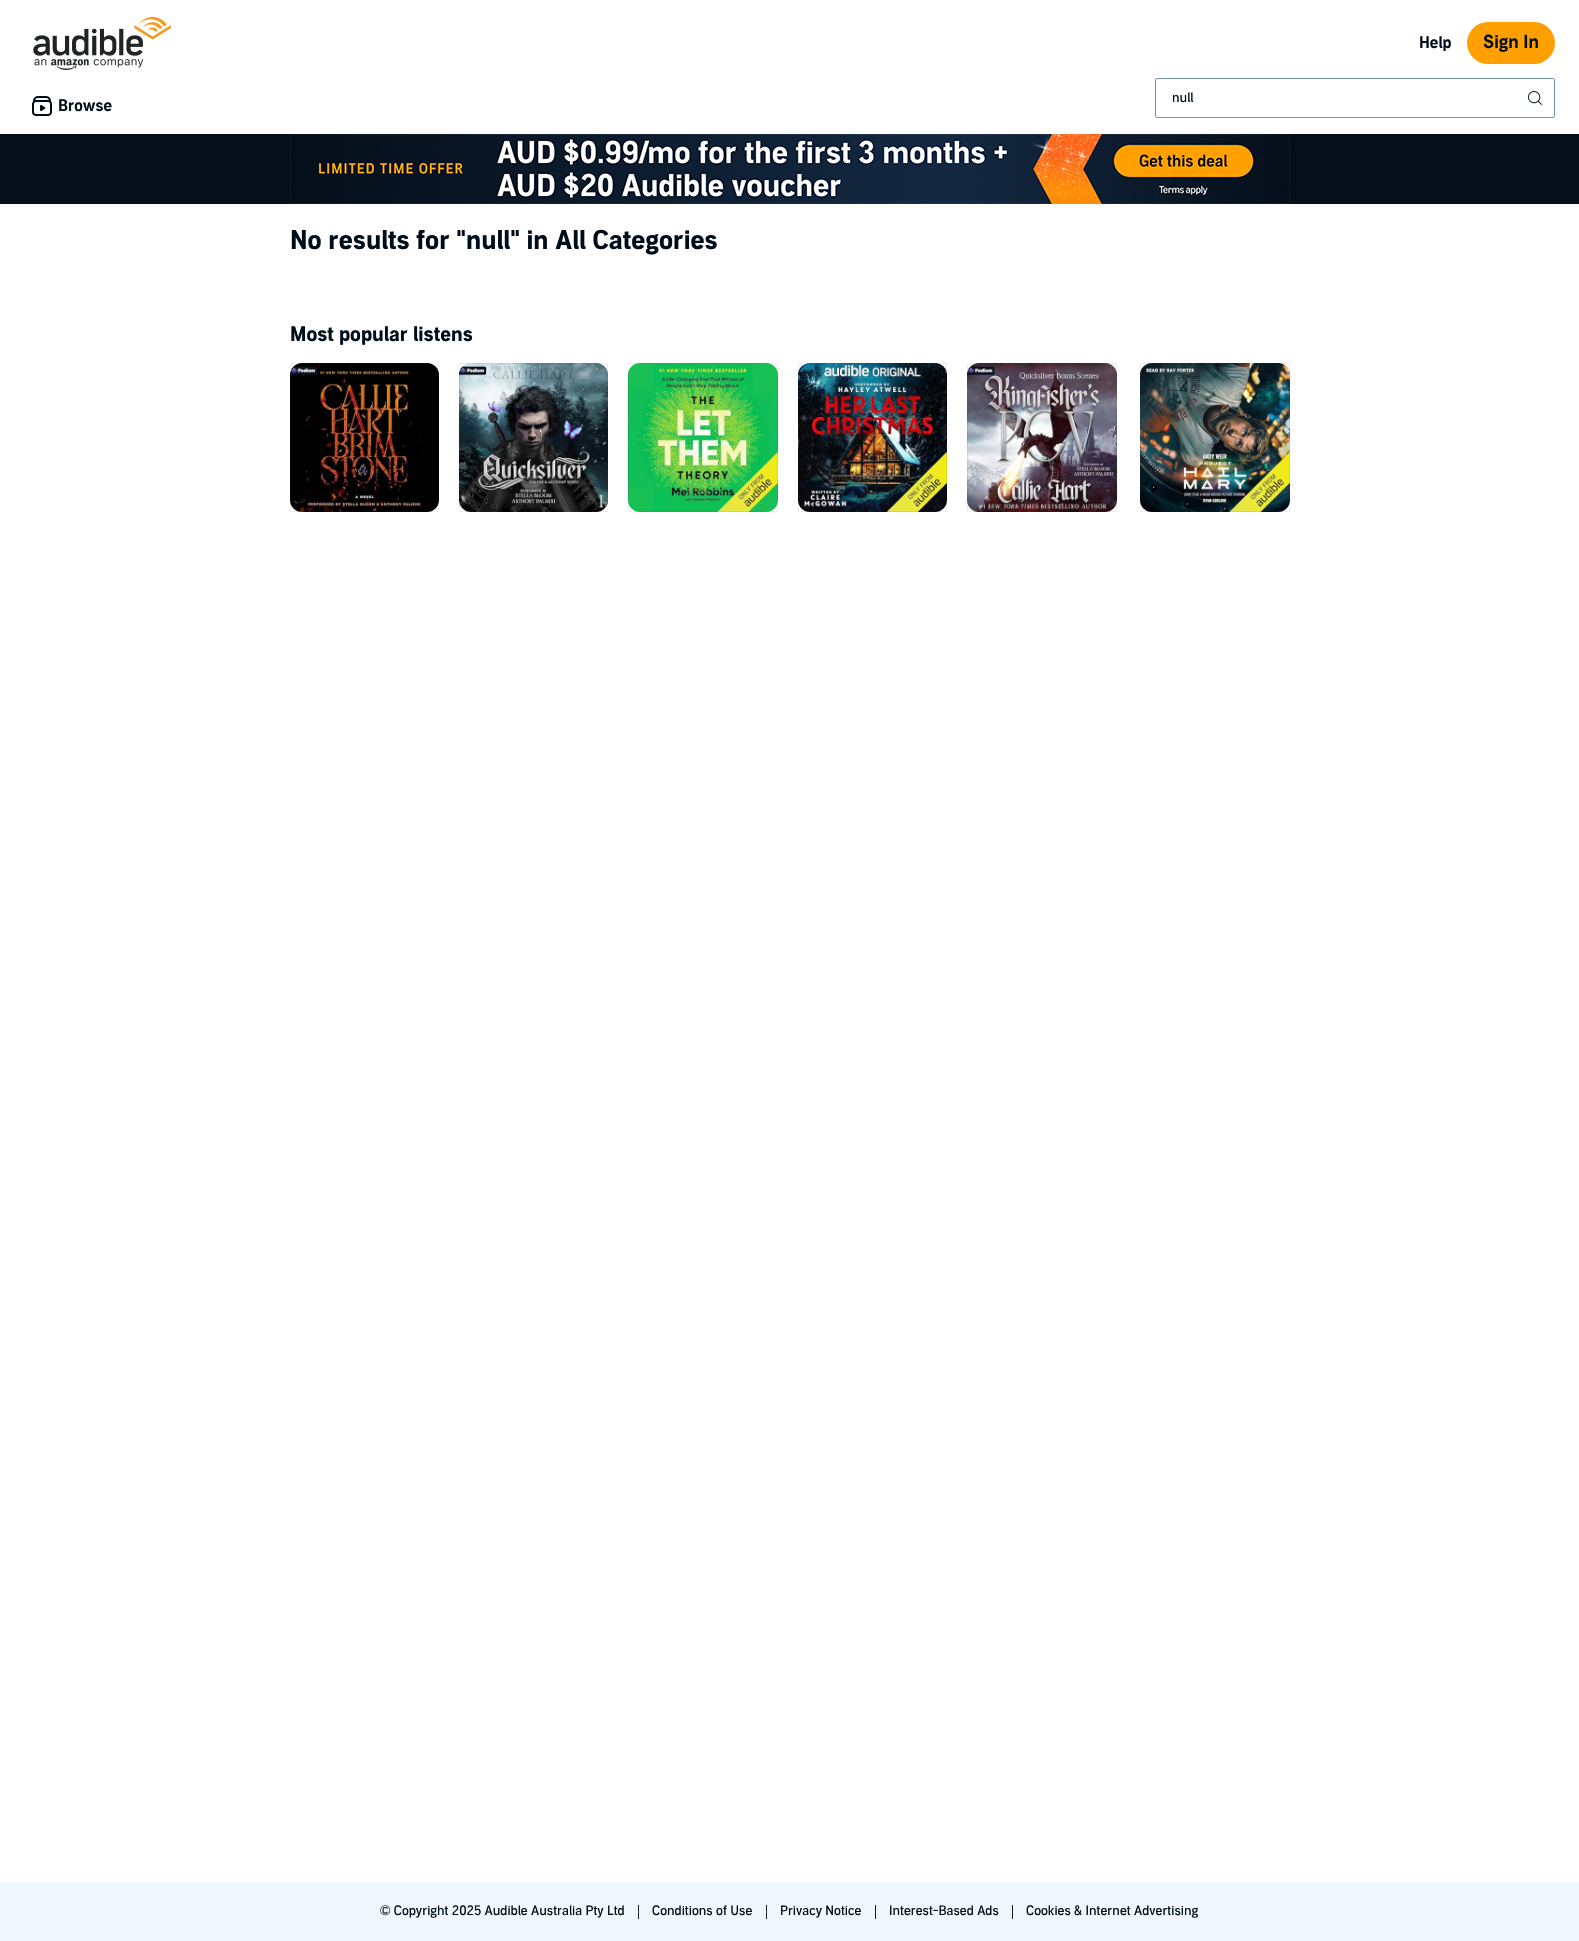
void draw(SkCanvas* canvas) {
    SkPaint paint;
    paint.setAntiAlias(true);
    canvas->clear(0xFFFFFFFF);
    canvas->drawImageRect(SkImages::DeferredFromEncodedData(SkData::MakeFromFileName("img1.png")), SkRect::MakeXYWH(33, 17, 138, 53), SkSamplingOptions());
    SkFont font1(fontMgr->matchFamilyStyle("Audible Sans", SkFontStyle(600, SkFontStyle::kNormal_Width, SkFontStyle::kUpright_Slant)), 16);
    font1.setSubpixel(true);
    paint.setColor(0xFF010E19);
    canvas->drawString("Help", 1419, 48, font1, paint);
    paint.setColor(0xFFFFA000);
    canvas->drawRoundRect(SkRect::MakeXYWH(1467, 22, 88, 42), 21, 21, paint);
    SkFont font2(fontMgr->matchFamilyStyle("Audible Sans", SkFontStyle(600, SkFontStyle::kNormal_Width, SkFontStyle::kUpright_Slant)), 18);
    font2.setSubpixel(true);
    paint.setColor(0xFF010E19);
    canvas->drawString("Sign In", 1483, 48, font2, paint);
    paint.setStyle(SkPaint::kStroke_Style);
    paint.setStrokeWidth(1);
    paint.setColor(0xFF7690B2);
    canvas->drawRoundRect(SkRect::MakeXYWH(1155.5f, 78.5f, 399, 39), 1.5f, 1.5f, paint);
    SkFont font3(fontMgr->matchFamilyStyle("Audible Sans", SkFontStyle::Normal()), 13);
    font3.setSubpixel(true);
    paint.setStyle(SkPaint::kFill_Style);
    paint.setColor(0xFF010E19);
    canvas->drawString("null", 1172, 102, font3, paint);
    canvas->drawImageRect(SkImages::DeferredFromEncodedData(SkData::MakeFromFileName("img2.png")), SkRect::MakeXYWH(1528, 91, 14, 14), SkSamplingOptions());
    canvas->drawImageRect(SkImages::DeferredFromEncodedData(SkData::MakeFromFileName("img3.png")), SkRect::MakeXYWH(32, 96, 20, 20), SkSamplingOptions());
    canvas->drawString("Browse", 58, 111, font1, paint);
    paint.setColor(0xFF050F19);
    canvas->drawRect(SkRect::MakeXYWH(0, 134, 1579, 70), paint);
    canvas->drawImageRect(SkImages::DeferredFromEncodedData(SkData::MakeFromFileName("img4.png")), SkRect::MakeXYWH(290, 134, 1000, 70), SkSamplingOptions());
    SkFont font4(fontMgr->matchFamilyStyle("Audible Sans", SkFontStyle::Bold()), 26);
    font4.setSubpixel(true);
    paint.setColor(0xFF010E19);
    canvas->drawString("No results for \"null\" in All Categories", 290, 249, font4, paint);
    SkFont font5(fontMgr->matchFamilyStyle("Audible Sans", SkFontStyle::Bold()), 20);
    font5.setSubpixel(true);
    canvas->drawString("Most popular listens", 290, 341, font5, paint);
    canvas->drawImageRect(SkImages::DeferredFromEncodedData(SkData::MakeFromFileName("img5.png")), SkRect::MakeXYWH(290, 363, 149, 149), SkSamplingOptions());
    paint.setStyle(SkPaint::kStroke_Style);
    paint.setColor(0x14212325);
    canvas->drawRect(SkRect::MakeXYWH(290.5f, 363.5f, 148, 148), paint);
    canvas->drawImageRect(SkImages::DeferredFromEncodedData(SkData::MakeFromFileName("img6.png")), SkRect::MakeXYWH(459, 363, 149, 149), SkSamplingOptions());
    canvas->drawRect(SkRect::MakeXYWH(459.5f, 363.5f, 148, 148), paint);
    canvas->drawImageRect(SkImages::DeferredFromEncodedData(SkData::MakeFromFileName("img7.png")), SkRect::MakeXYWH(628, 363, 150, 149), SkSamplingOptions());
    canvas->drawRect(SkRect::MakeXYWH(628.5f, 363.5f, 149, 148), paint);
    canvas->drawImageRect(SkImages::DeferredFromEncodedData(SkData::MakeFromFileName("img8.png")), SkRect::MakeXYWH(798, 363, 149, 149), SkSamplingOptions());
    canvas->drawRect(SkRect::MakeXYWH(798.5f, 363.5f, 148, 148), paint);
    canvas->drawImageRect(SkImages::DeferredFromEncodedData(SkData::MakeFromFileName("img9.png")), SkRect::MakeXYWH(967, 363, 150, 149), SkSamplingOptions());
    canvas->drawRect(SkRect::MakeXYWH(967.5f, 363.5f, 149, 148), paint);
    canvas->drawImageRect(SkImages::DeferredFromEncodedData(SkData::MakeFromFileName("img10.png")), SkRect::MakeXYWH(1140, 363, 150, 149), SkSamplingOptions());
    canvas->drawRect(SkRect::MakeXYWH(1140.5f, 363.5f, 149, 148), paint);
    paint.setStyle(SkPaint::kFill_Style);
    paint.setColor(0xFFF1F7FE);
    canvas->drawRect(SkRect::MakeXYWH(0, 1882, 1579, 59), paint);
    paint.setColor(0xFF010E19);
    canvas->drawString("© Copyright 2025 Audible Australia Pty Ltd", 380, 1915, font3, paint);
    paint.setColor(0xFF112235);
    canvas->drawRect(SkRect::MakeXYWH(638, 1905, 1, 14), paint);
    paint.setColor(0xFF010E19);
    canvas->drawString("Conditions of Use", 652, 1915, font3, paint);
    paint.setColor(0xFF112235);
    canvas->drawRect(SkRect::MakeXYWH(766, 1905, 1, 14), paint);
    paint.setColor(0xFF010E19);
    canvas->drawString("Privacy Notice", 780, 1915, font3, paint);
    paint.setColor(0xFF112235);
    canvas->drawRect(SkRect::MakeXYWH(875, 1905, 1, 14), paint);
    paint.setColor(0xFF010E19);
    canvas->drawString("Interest-Based Ads", 889, 1915, font3, paint);
    paint.setColor(0xFF112235);
    canvas->drawRect(SkRect::MakeXYWH(1012, 1905, 1, 14), paint);
    paint.setColor(0xFF010E19);
    canvas->drawString("Cookies & Internet Advertising", 1026, 1915, font3, paint);
}
